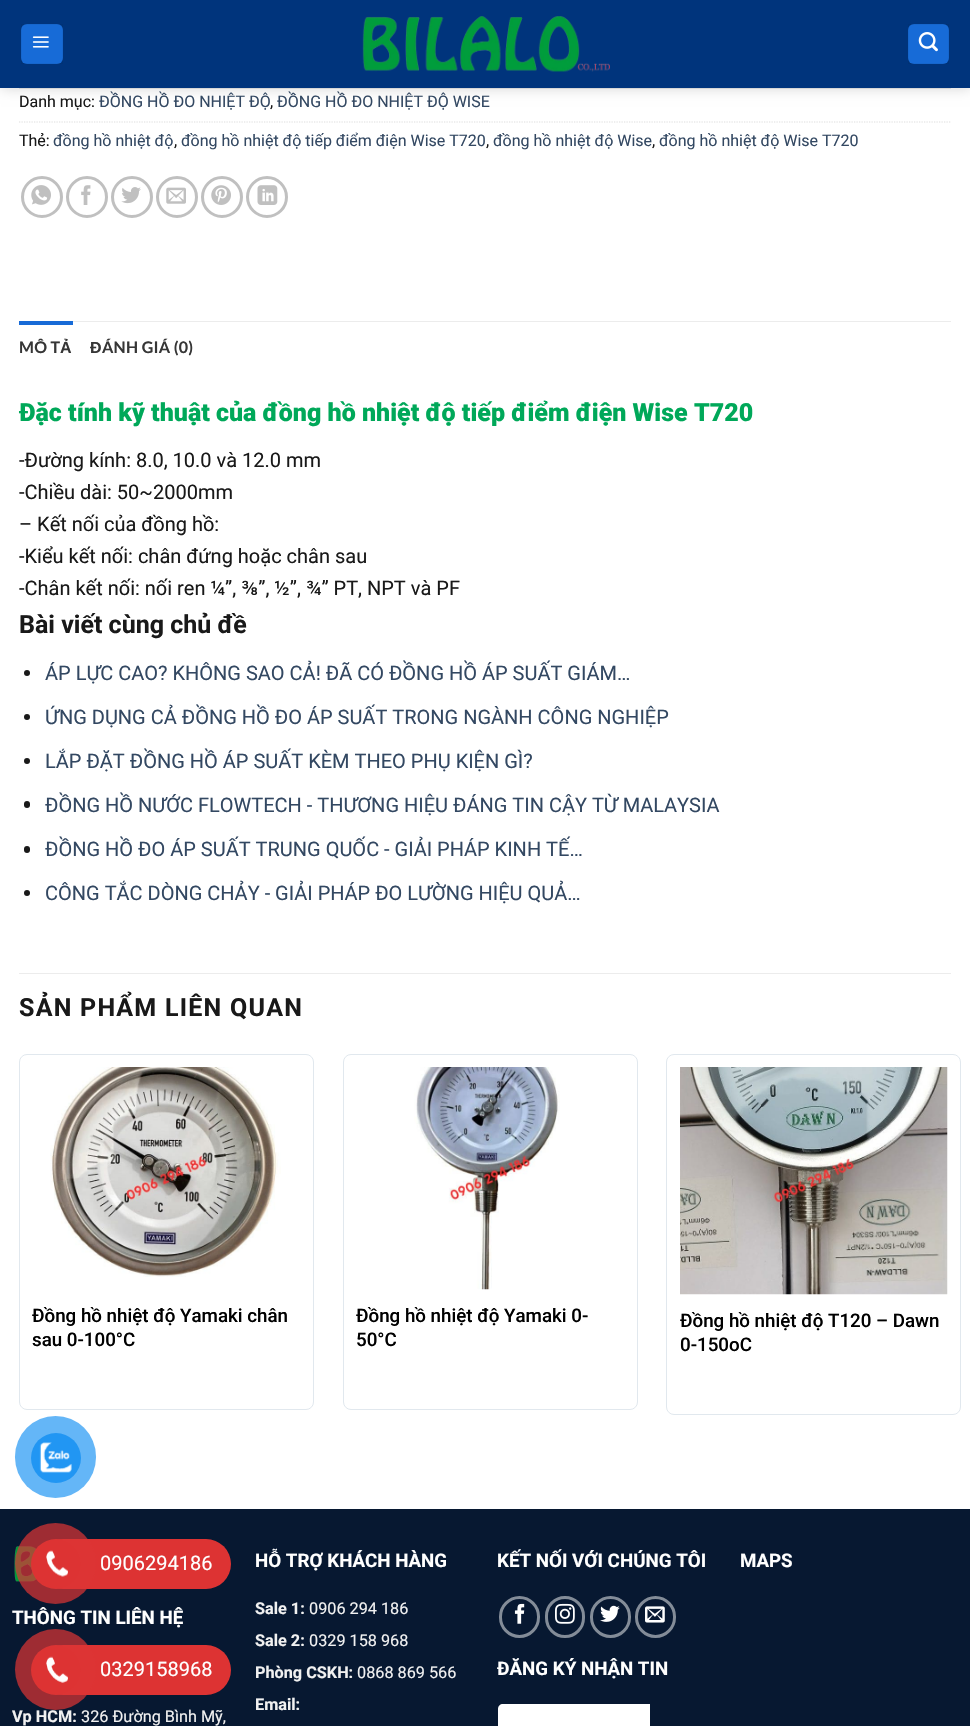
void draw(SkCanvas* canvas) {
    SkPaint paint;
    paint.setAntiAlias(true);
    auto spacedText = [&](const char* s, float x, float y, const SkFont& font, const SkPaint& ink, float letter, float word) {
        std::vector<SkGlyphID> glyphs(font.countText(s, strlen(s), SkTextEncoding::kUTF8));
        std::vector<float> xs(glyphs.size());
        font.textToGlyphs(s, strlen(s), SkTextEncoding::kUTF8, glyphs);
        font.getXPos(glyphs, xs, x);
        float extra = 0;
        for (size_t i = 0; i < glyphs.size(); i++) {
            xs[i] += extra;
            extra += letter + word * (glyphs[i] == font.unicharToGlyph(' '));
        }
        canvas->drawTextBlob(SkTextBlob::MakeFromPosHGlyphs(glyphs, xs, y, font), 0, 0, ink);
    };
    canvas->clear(0xFFFFFFFF);
    paint.setColor(0x26000000);
    paint.setMaskFilter(SkMaskFilter::MakeBlur(kNormal_SkBlurStyle, 6));
    canvas->drawRect(SkRect::MakeXYWH(1, 1, 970, 88), paint);
    paint.setMaskFilter(nullptr);
    paint.setColor(0xFF00347C);
    canvas->drawRect(SkRect::MakeXYWH(0, 0, 970, 88), paint);
    paint.setColor(0xFF176BD7);
    canvas->drawRoundRect(SkRect::MakeXYWH(21, 24, 42, 40), 6, 6, paint);
    paint.setStyle(SkPaint::kStroke_Style);
    paint.setStrokeWidth(1);
    paint.setColor(0x0D000000);
    canvas->drawRect(SkRect::MakeXYWH(21.5f, 24.5f, 41, 39), paint);
    canvas->drawImageRect(SkImages::DeferredFromEncodedData(SkData::MakeFromFileName("img1.png")), SkRect::MakeXYWH(32, 36, 17, 12), SkSamplingOptions());
    canvas->drawImageRect(SkImages::DeferredFromEncodedData(SkData::MakeFromFileName("img2.png")), SkRect::MakeXYWH(362, 16, 248, 56), SkSamplingOptions());
    paint.setStyle(SkPaint::kFill_Style);
    paint.setColor(0xFF176BD7);
    canvas->drawRoundRect(SkRect::MakeXYWH(908, 24, 41, 40), 6, 6, paint);
    paint.setStyle(SkPaint::kStroke_Style);
    paint.setColor(0x0D000000);
    canvas->drawRect(SkRect::MakeXYWH(908.5f, 24.5f, 40, 39), paint);
    canvas->drawImageRect(SkImages::DeferredFromEncodedData(SkData::MakeFromFileName("img3.png")), SkRect::MakeXYWH(918, 32, 20, 20), SkSamplingOptions());
    paint.setStyle(SkPaint::kFill_Style);
    paint.setColor(0xFFD6D6D6);
    canvas->drawRect(SkRect::MakeXYWH(19, 88, 932, 1), paint);
    SkFont font1(fontMgr->matchFamilyStyle("Roboto", SkFontStyle::Normal()), 16);
    font1.setSubpixel(true);
    paint.setColor(0xFF191919);
    canvas->drawString("Danh mục:", 19, 107, font1, paint);
    paint.setColor(0xFF334862);
    canvas->drawString("ĐỒNG HỒ ĐO NHIỆT ĐỘ", 99, 107, font1, paint);
    paint.setColor(0xFF191919);
    canvas->drawString(",", 270, 107, font1, paint);
    paint.setColor(0xFF334862);
    canvas->drawString("ĐỒNG HỒ ĐO NHIỆT ĐỘ WISE", 277, 107, font1, paint);
    paint.setStyle(SkPaint::kStroke_Style);
    paint.setStrokeWidth(1.2f);
    paint.setColor(0xFFDDDDDD);
    paint.setPathEffect(SkDashPathEffect::Make({{1.25f, 1.25f}}, 0));
    canvas->drawPath(SkPathBuilder().moveTo(19, 122).lineTo(951, 122).detach(), paint);
    paint.setPathEffect(nullptr);
    paint.setStyle(SkPaint::kFill_Style);
    paint.setColor(0xFF191919);
    canvas->drawString("Thẻ:", 19, 146, font1, paint);
    paint.setColor(0xFF334862);
    canvas->drawString("đồng hồ nhiệt độ", 53, 146, font1, paint);
    paint.setColor(0xFF191919);
    canvas->drawString(",", 174, 146, font1, paint);
    paint.setColor(0xFF334862);
    canvas->drawString("đồng hồ nhiệt độ tiếp điểm điện Wise T720", 181, 146, font1, paint);
    paint.setColor(0xFF191919);
    canvas->drawString(",", 486, 146, font1, paint);
    paint.setColor(0xFF334862);
    canvas->drawString("đồng hồ nhiệt độ Wise", 493, 146, font1, paint);
    paint.setColor(0xFF191919);
    canvas->drawString(",", 652, 146, font1, paint);
    paint.setColor(0xFF334862);
    canvas->drawString("đồng hồ nhiệt độ Wise T720", 659, 146, font1, paint);
    paint.setStyle(SkPaint::kStroke_Style);
    paint.setStrokeWidth(3);
    paint.setColor(0xFFC0C0C0);
    canvas->drawCircle(42, 197, 19.5f, paint);
    canvas->drawImageRect(SkImages::DeferredFromEncodedData(SkData::MakeFromFileName("img4.png")), SkRect::MakeXYWH(31, 185, 20, 20), SkSamplingOptions());
    canvas->drawCircle(87, 197, 19.5f, paint);
    canvas->drawImageRect(SkImages::DeferredFromEncodedData(SkData::MakeFromFileName("img5.png")), SkRect::MakeXYWH(81, 185, 10, 20), SkSamplingOptions());
    canvas->drawCircle(132, 197, 19.5f, paint);
    canvas->drawImageRect(SkImages::DeferredFromEncodedData(SkData::MakeFromFileName("img6.png")), SkRect::MakeXYWH(121, 187, 20, 17), SkSamplingOptions());
    canvas->drawCircle(177, 197, 19.5f, paint);
    canvas->drawImageRect(SkImages::DeferredFromEncodedData(SkData::MakeFromFileName("img7.png")), SkRect::MakeXYWH(166, 187, 20, 17), SkSamplingOptions());
    canvas->drawCircle(222, 197, 19.5f, paint);
    canvas->drawImageRect(SkImages::DeferredFromEncodedData(SkData::MakeFromFileName("img8.png")), SkRect::MakeXYWH(211, 185, 20, 20), SkSamplingOptions());
    canvas->drawCircle(267, 197, 19.5f, paint);
    canvas->drawImageRect(SkImages::DeferredFromEncodedData(SkData::MakeFromFileName("img9.png")), SkRect::MakeXYWH(257, 185, 21, 20), SkSamplingOptions());
    paint.setStyle(SkPaint::kFill_Style);
    paint.setColor(0xFFECECEC);
    canvas->drawRect(SkRect::MakeXYWH(73, 321, 878, 1), paint);
    paint.setColor(0xFF176BD7);
    canvas->drawRect(SkRect::MakeXYWH(19, 321, 54, 4), paint);
    SkFont font2(fontMgr->matchFamilyStyle("Lato", SkFontStyle::Bold()), 16);
    font2.setSubpixel(true);
    paint.setColor(0xFF363636);
    spacedText("MÔ T", 19, 353, font2, paint, 0.25f, 0);
    SkFont font3(fontMgr->matchFamilyStyle("Liberation Sans", SkFontStyle::Bold()), 16);
    font3.setSubpixel(true);
    spacedText("Ả", 60, 353, font3, paint, 0.25f, 0);
    spacedText("Đ", 90, 353, font3, paint, 0.25f, 0);
    spacedText("ÁNH GIÁ (0)", 102, 353, font2, paint, 0.25f, 0);
    SkFont font4(fontMgr->matchFamilyStyle("Roboto", SkFontStyle(900, SkFontStyle::kNormal_Width, SkFontStyle::kUpright_Slant)), 25);
    font4.setSubpixel(true);
    paint.setColor(0xFF00A859);
    canvas->drawString("Đặc tính kỹ thuật của đồng hồ nhiệt độ tiếp điểm điện Wise T720", 19, 421, font4, paint);
    SkFont font5(fontMgr->matchFamilyStyle("Roboto", SkFontStyle::Normal()), 20);
    font5.setSubpixel(true);
    paint.setColor(0xFF191919);
    canvas->drawString("-Đường kính: 8.0, 10.0 và 12.0 mm", 19, 467, font5, paint);
    canvas->drawString("-Chiều dài: 50~2000mm", 19, 499, font5, paint);
    canvas->drawString("– Kết nối của đồng hồ:", 19, 531, font5, paint);
    canvas->drawString("-Kiểu kết nối: chân đứng hoặc chân sau", 19, 563, font5, paint);
    canvas->drawString("-Chân kết nối: nối ren ¼”, ⅜”, ½”, ¾” PT, NPT và PF", 19, 595, font5, paint);
    SkFont font6(fontMgr->matchFamilyStyle("Roboto", SkFontStyle::Bold()), 25);
    font6.setSubpixel(true);
    canvas->drawString("Bài viết cùng chủ đề", 19, 633, font6, paint);
    canvas->drawCircle(27, 673, 3, paint);
    paint.setColor(0xFF334862);
    canvas->drawString("ÁP LỰC CAO? KHÔNG SAO CẢ! ĐÃ CÓ ĐỒNG HỒ ÁP SUẤT GIÁM…", 45, 680, font5, paint);
    paint.setColor(0xFF191919);
    canvas->drawCircle(27, 717, 3, paint);
    paint.setColor(0xFF334862);
    canvas->drawString("ỨNG DỤNG CẢ ĐỒNG HỒ ĐO ÁP SUẤT TRONG NGÀNH CÔNG NGHIỆP", 45, 724, font5, paint);
    paint.setColor(0xFF191919);
    canvas->drawCircle(27, 761, 3, paint);
    paint.setColor(0xFF334862);
    canvas->drawString("LẮP ĐẶT ĐỒNG HỒ ÁP SUẤT KÈM THEO PHỤ KIỆN GÌ?", 45, 768, font5, paint);
    paint.setColor(0xFF191919);
    canvas->drawRoundRect(SkRect::MakeXYWH(24, 801, 6, 7), 3, 3, paint);
    paint.setColor(0xFF334862);
    canvas->drawString("ĐỒNG HỒ NƯỚC FLOWTECH - THƯƠNG HIỆU ĐÁNG TIN CẬY TỪ MALAYSIA", 45, 812, font5, paint);
    paint.setColor(0xFF191919);
    canvas->drawRoundRect(SkRect::MakeXYWH(24, 846, 6, 7), 3, 3, paint);
    paint.setColor(0xFF334862);
    canvas->drawString("ĐỒNG HỒ ĐO ÁP SUẤT TRUNG QUỐC - GIẢI PHÁP KINH TẾ…", 45, 856, font5, paint);
    paint.setColor(0xFF191919);
    canvas->drawCircle(27, 893, 3, paint);
    paint.setColor(0xFF334862);
    canvas->drawString("CÔNG TẮC DÒNG CHẢY - GIẢI PHÁP ĐO LƯỜNG HIỆU QUẢ…", 45, 900, font5, paint);
    paint.setColor(0xFFECECEC);
    canvas->drawRect(SkRect::MakeXYWH(19, 973, 932, 1), paint);
    paint.setColor(0xFF191919);
    spacedText("SẢN PHẨM LIÊN QUAN", 19, 1016, font6, paint, 1.25f, 0);
    paint.setStyle(SkPaint::kStroke_Style);
    paint.setStrokeWidth(1);
    paint.setColor(0xFFE1E8EE);
    canvas->drawRoundRect(SkRect::MakeXYWH(19.5f, 1054.5f, 294, 355), 7.5f, 7.5f, paint);
    canvas->drawImageRect(SkImages::DeferredFromEncodedData(SkData::MakeFromFileName("img10.png")), SkRect::MakeXYWH(50, 1067, 231, 210), SkSamplingOptions());
    SkFont font7(fontMgr->matchFamilyStyle("Roboto", SkFontStyle(500, SkFontStyle::kNormal_Width, SkFontStyle::kUpright_Slant)), 18.75f);
    font7.setSubpixel(true);
    paint.setStyle(SkPaint::kFill_Style);
    paint.setColor(0xFF000000);
    canvas->drawString("Đồng hồ nhiệt độ Yamaki chân", 32, 1322, font7, paint);
    canvas->drawString("sau 0-100°C", 32, 1346, font7, paint);
    paint.setStyle(SkPaint::kStroke_Style);
    paint.setColor(0xFFE1E8EE);
    canvas->drawRoundRect(SkRect::MakeXYWH(343.5f, 1054.5f, 294, 355), 7.5f, 7.5f, paint);
    canvas->drawImageRect(SkImages::DeferredFromEncodedData(SkData::MakeFromFileName("img11.png")), SkRect::MakeXYWH(414, 1067, 146, 223), SkSamplingOptions());
    paint.setStyle(SkPaint::kFill_Style);
    paint.setColor(0xFF000000);
    canvas->drawString("Đồng hồ nhiệt độ Yamaki 0-", 356, 1322, font7, paint);
    canvas->drawString("50°C", 356, 1346, font7, paint);
    paint.setStyle(SkPaint::kStroke_Style);
    paint.setColor(0xFFE1E8EE);
    canvas->drawRoundRect(SkRect::MakeXYWH(666.5f, 1054.5f, 294, 360), 7.5f, 7.5f, paint);
    canvas->drawImageRect(SkImages::DeferredFromEncodedData(SkData::MakeFromFileName("img12.png")), SkRect::MakeXYWH(680, 1067, 268, 228), SkSamplingOptions());
    paint.setStyle(SkPaint::kFill_Style);
    paint.setColor(0xFF000000);
    canvas->drawString("Đồng hồ nhiệt độ T120 – Dawn", 680, 1327, font7, paint);
    canvas->drawString("0-150oC", 680, 1351, font7, paint);
    paint.setColor(0xFF071831);
    canvas->drawRect(SkRect::MakeXYWH(0, 1509, 970, 217), paint);
    SkFont font8(fontMgr->matchFamilyStyle("Roboto", SkFontStyle::Bold()), 18.75f);
    font8.setSubpixel(true);
    paint.setColor(0xFFFFFFFF);
    canvas->drawString("HỖ TRỢ KHÁCH HÀNG", 255, 1567, font8, paint);
    SkFont font9(fontMgr->matchFamilyStyle("Roboto", SkFontStyle::Bold()), 16.25f);
    font9.setSubpixel(true);
    paint.setColor(0xFFF1F1F1);
    canvas->drawString("Sale 1:", 255, 1614, font9, paint);
    SkFont font10(fontMgr->matchFamilyStyle("Roboto", SkFontStyle::Normal()), 16.25f);
    font10.setSubpixel(true);
    canvas->drawString("0906 294 186", 309, 1614, font10, paint);
    canvas->drawString("Sale 2:", 255, 1646, font9, paint);
    canvas->drawString("0329 158 968", 309, 1646, font10, paint);
    canvas->drawString("Phòng CSKH:", 255, 1678, font9, paint);
    canvas->drawString("0868 869 566", 357, 1678, font10, paint);
    canvas->drawString("Email:", 255, 1710, font9, paint);
    paint.setColor(0xFFFFFFFF);
    canvas->drawString("KẾT NỐI VỚI CHÚNG TÔI", 497, 1567, font8, paint);
    paint.setStyle(SkPaint::kStroke_Style);
    paint.setStrokeWidth(3);
    paint.setColor(0xFF838C98);
    canvas->drawRoundRect(SkRect::MakeXYWH(500.5f, 1597.5f, 38, 39), 19, 19, paint);
    canvas->drawImageRect(SkImages::DeferredFromEncodedData(SkData::MakeFromFileName("img13.png")), SkRect::MakeXYWH(514, 1603, 11, 21), SkSamplingOptions());
    canvas->drawRoundRect(SkRect::MakeXYWH(546.5f, 1597.5f, 37, 39), 18.5f, 18.5f, paint);
    canvas->drawImageRect(SkImages::DeferredFromEncodedData(SkData::MakeFromFileName("img14.png")), SkRect::MakeXYWH(555, 1603, 20, 21), SkSamplingOptions());
    canvas->drawRoundRect(SkRect::MakeXYWH(591.5f, 1597.5f, 38, 39), 19, 19, paint);
    canvas->drawImageRect(SkImages::DeferredFromEncodedData(SkData::MakeFromFileName("img15.png")), SkRect::MakeXYWH(600, 1605, 20, 17), SkSamplingOptions());
    canvas->drawRoundRect(SkRect::MakeXYWH(636.5f, 1597.5f, 38, 39), 19, 19, paint);
    canvas->drawImageRect(SkImages::DeferredFromEncodedData(SkData::MakeFromFileName("img16.png")), SkRect::MakeXYWH(645, 1606, 20, 17), SkSamplingOptions());
    paint.setStyle(SkPaint::kFill_Style);
    paint.setColor(0xFFFFFFFF);
    canvas->drawString("ĐĂNG KÝ NHẬN TIN", 497, 1675, font8, paint);
    canvas->drawPath(SkPathBuilder().moveTo(503, 1704).lineTo(650, 1704).lineTo(650, 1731).lineTo(503, 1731).cubicTo(500, 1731, 498, 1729, 498, 1726).lineTo(498, 1709).cubicTo(498, 1706, 500, 1704, 503, 1704).close().detach(), paint);
    canvas->drawString("MAPS", 740, 1567, font8, paint);
    canvas->drawImageRect(SkImages::DeferredFromEncodedData(SkData::MakeFromFileName("img17.png")), SkRect::MakeXYWH(14, 1546, 23, 36), SkSamplingOptions());
    canvas->drawString("THÔNG TIN LIÊN HỆ", 12, 1624, font8, paint);
    paint.setColor(0xFFF1F1F1);
    canvas->drawString("Vp HCM:", 12, 1722, font9, paint);
    canvas->drawString("326 Đường Bình Mỹ,", 81, 1722, font10, paint);
    paint.setColor(0xFF64B6F7);
    canvas->drawRoundRect(SkRect::MakeXYWH(15, 1416, 81, 82), 40.5f, 40.5f, paint);
    paint.setColor(0xFF2196F3);
    canvas->drawCircle(56, 1458, 25, paint);
    canvas->drawImageRect(SkImages::DeferredFromEncodedData(SkData::MakeFromFileName("img18.png")), SkRect::MakeXYWH(39, 1442, 33, 31), SkSamplingOptions());
    paint.setColor(0xFFDD3333);
    canvas->drawRoundRect(SkRect::MakeXYWH(38, 1539, 193, 50), 25, 25, paint);
    paint.setColor(0xB3DD3333);
    canvas->drawCircle(55.5f, 1563.5f, 40.5f, paint);
    paint.setColor(0xFFDD3333);
    canvas->drawCircle(56, 1564, 25, paint);
    canvas->drawImageRect(SkImages::DeferredFromEncodedData(SkData::MakeFromFileName("img19.png")), SkRect::MakeXYWH(46, 1550, 22, 27), SkSamplingOptions());
    paint.setColor(0xFFFFFFFF);
    canvas->drawString("0906294186", 100, 1570, font5, paint);
    paint.setColor(0xFFDD3333);
    canvas->drawRoundRect(SkRect::MakeXYWH(38, 1645, 193, 50), 25, 25, paint);
    paint.setColor(0xB3DD3333);
    canvas->drawCircle(55.5f, 1669.5f, 40.5f, paint);
    paint.setColor(0xFFDD3333);
    canvas->drawCircle(56, 1670, 25, paint);
    canvas->drawImageRect(SkImages::DeferredFromEncodedData(SkData::MakeFromFileName("img20.png")), SkRect::MakeXYWH(46, 1656, 22, 27), SkSamplingOptions());
    paint.setColor(0xFFFFFFFF);
    canvas->drawString("0329158968", 100, 1676, font5, paint);
}
